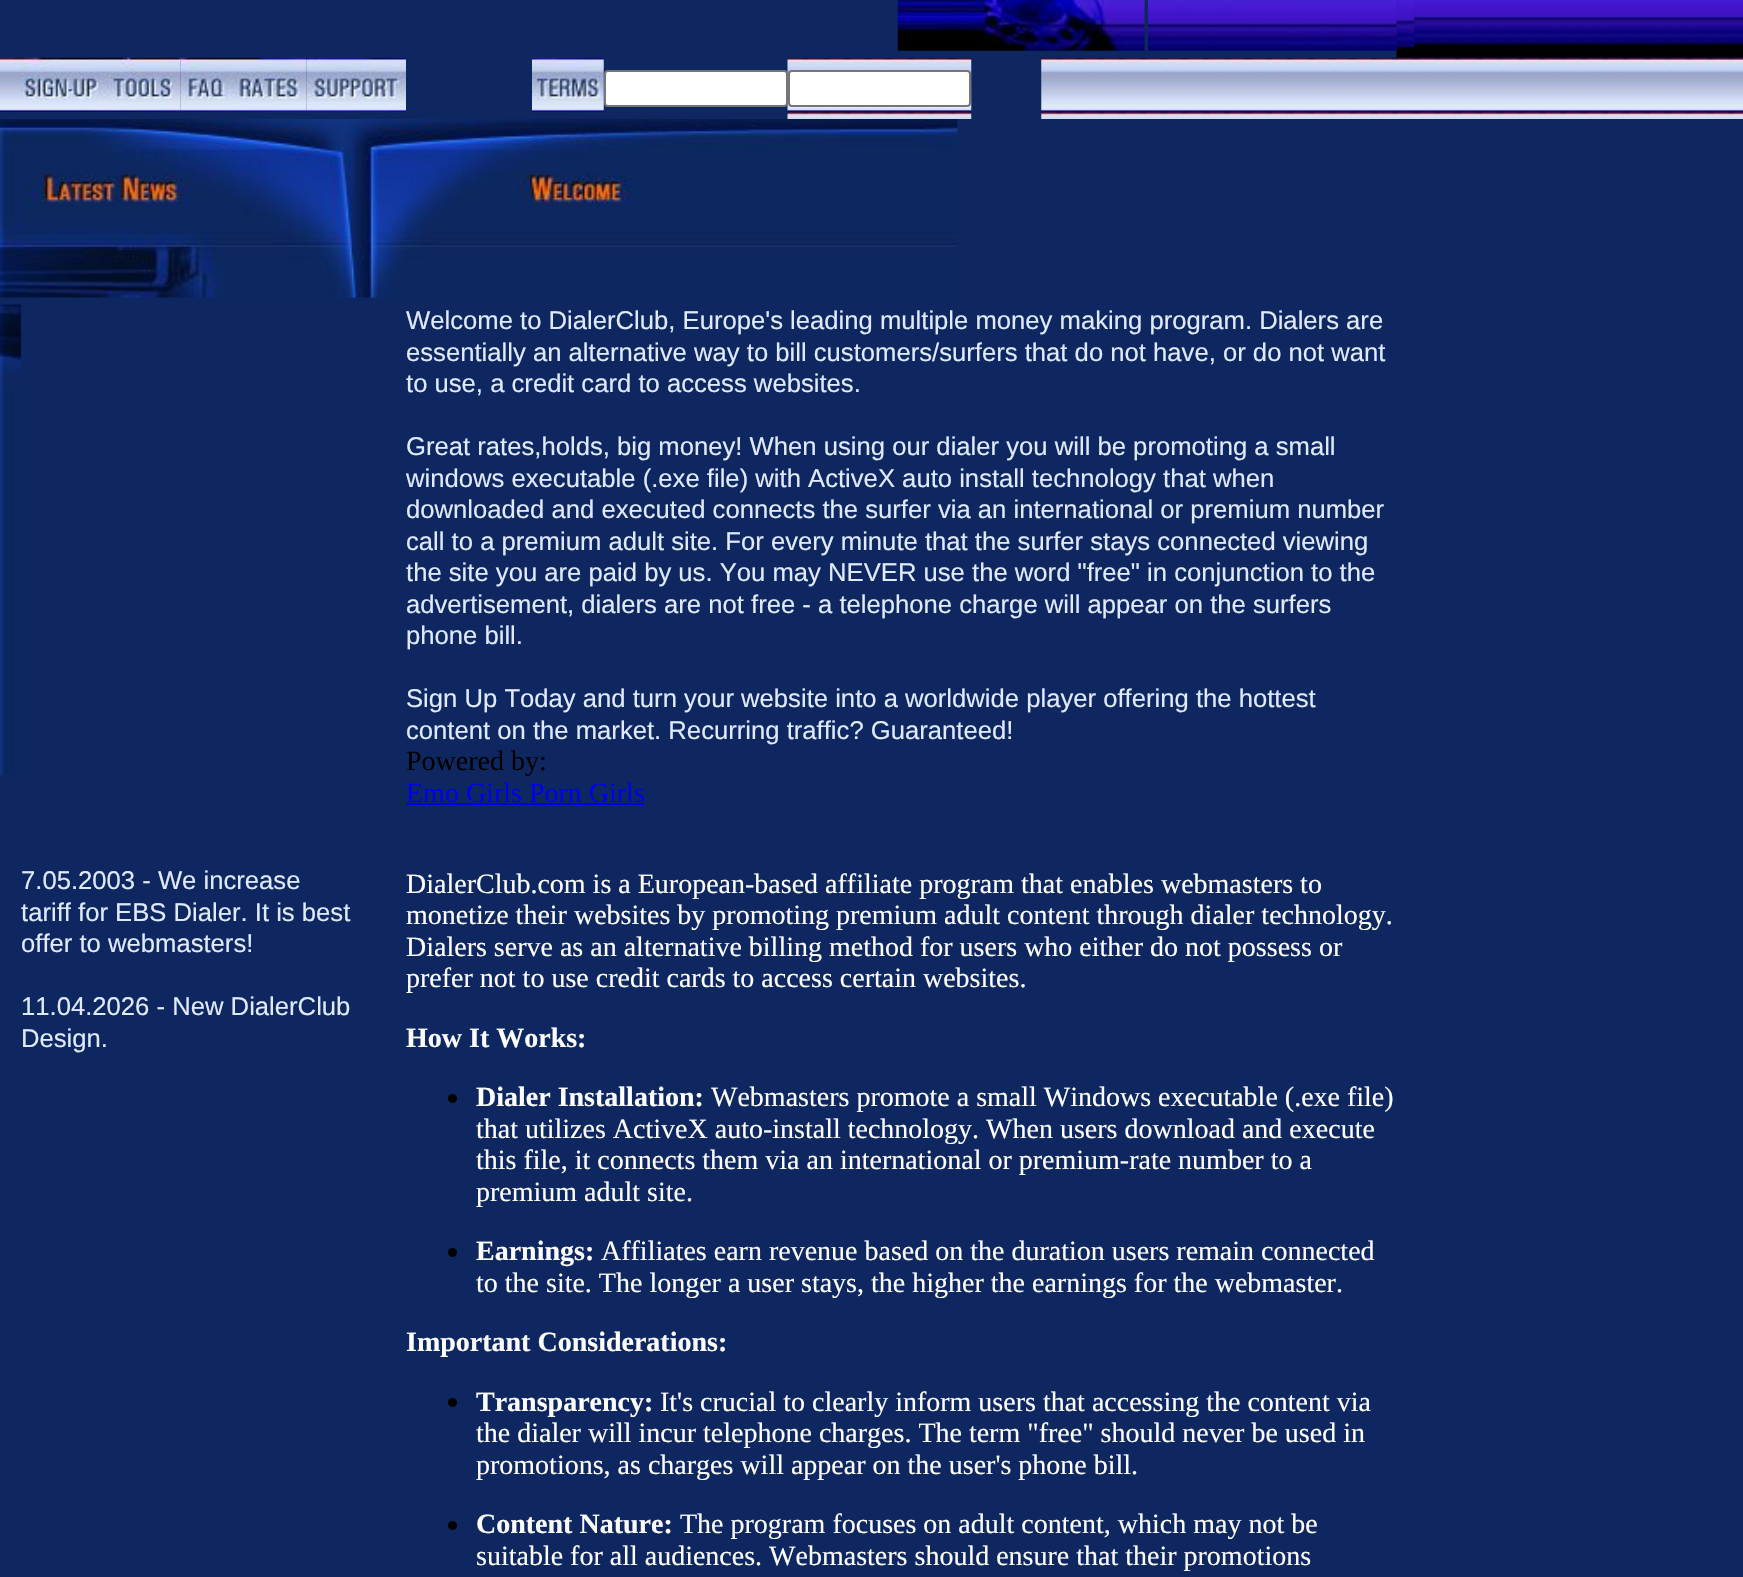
void draw(SkCanvas* canvas) {
    SkPaint paint;
    paint.setAntiAlias(true);
    canvas->clear(0xFF0E2761);
    canvas->drawImageRect(SkImages::DeferredFromEncodedData(SkData::MakeFromFileName("img1.png")), SkRect::MakeXYWH(897, 0, 248, 51), SkSamplingOptions());
    canvas->drawImageRect(SkImages::DeferredFromEncodedData(SkData::MakeFromFileName("img3.png")), SkRect::MakeXYWH(1396, 0, 347, 58), SkSamplingOptions());
    canvas->drawImageRect(SkImages::DeferredFromEncodedData(SkData::MakeFromFileName("img4.png")), SkRect::MakeXYWH(1396, 0, 18, 48), SkSamplingOptions());
    canvas->drawImageRect(SkImages::DeferredFromEncodedData(SkData::MakeFromFileName("img2.png")), SkRect::MakeXYWH(1148, 0, 249, 51), SkSamplingOptions());
    canvas->drawImageRect(SkImages::DeferredFromEncodedData(SkData::MakeFromFileName("img5.png")), SkRect::MakeXYWH(0, 57, 21, 55), SkSamplingOptions());
    canvas->drawImageRect(SkImages::DeferredFromEncodedData(SkData::MakeFromFileName("img6.png")), SkRect::MakeXYWH(21, 57, 84, 55), SkSamplingOptions());
    canvas->drawImageRect(SkImages::DeferredFromEncodedData(SkData::MakeFromFileName("img7.png")), SkRect::MakeXYWH(105, 57, 76, 55), SkSamplingOptions());
    canvas->drawImageRect(SkImages::DeferredFromEncodedData(SkData::MakeFromFileName("img8.png")), SkRect::MakeXYWH(180, 57, 51, 55), SkSamplingOptions());
    canvas->drawImageRect(SkImages::DeferredFromEncodedData(SkData::MakeFromFileName("img9.png")), SkRect::MakeXYWH(231, 57, 76, 55), SkSamplingOptions());
    canvas->drawImageRect(SkImages::DeferredFromEncodedData(SkData::MakeFromFileName("img10.png")), SkRect::MakeXYWH(306, 57, 100, 55), SkSamplingOptions());
    canvas->drawImageRect(SkImages::DeferredFromEncodedData(SkData::MakeFromFileName("img11.png")), SkRect::MakeXYWH(532, 57, 72, 55), SkSamplingOptions());
    canvas->drawImageRect(SkImages::DeferredFromEncodedData(SkData::MakeFromFileName("img12.png")), SkRect::MakeXYWH(787, 57, 185, 62), SkSamplingOptions());
    paint.setColor(0xFFFFFFFF);
    canvas->drawRoundRect(SkRect::MakeXYWH(605, 71, 182, 35), 3, 3, paint);
    paint.setStyle(SkPaint::kStroke_Style);
    paint.setStrokeWidth(2);
    paint.setColor(0xFF767676);
    canvas->drawRoundRect(SkRect::MakeXYWH(605, 71, 182, 35), 3, 3, paint);
    paint.setStyle(SkPaint::kFill_Style);
    paint.setColor(0xFFFFFFFF);
    canvas->drawRoundRect(SkRect::MakeXYWH(789, 71, 181, 35), 3, 3, paint);
    paint.setStyle(SkPaint::kStroke_Style);
    paint.setColor(0xFF767676);
    canvas->drawRoundRect(SkRect::MakeXYWH(789, 71, 181, 35), 3, 3, paint);
    canvas->drawImageRect(SkImages::DeferredFromEncodedData(SkData::MakeFromFileName("img13.png")), SkRect::MakeXYWH(1041, 57, 702, 62), SkSamplingOptions());
    canvas->drawImageRect(SkImages::DeferredFromEncodedData(SkData::MakeFromFileName("img14.png")), SkRect::MakeXYWH(0, 119, 189, 179), SkSamplingOptions());
    canvas->drawImageRect(SkImages::DeferredFromEncodedData(SkData::MakeFromFileName("img15.png")), SkRect::MakeXYWH(189, 119, 163, 179), SkSamplingOptions());
    canvas->drawImageRect(SkImages::DeferredFromEncodedData(SkData::MakeFromFileName("img16.png")), SkRect::MakeXYWH(351, 119, 27, 179), SkSamplingOptions());
    canvas->drawImageRect(SkImages::DeferredFromEncodedData(SkData::MakeFromFileName("img17.png")), SkRect::MakeXYWH(378, 119, 580, 179), SkSamplingOptions());
    canvas->drawImageRect(SkImages::DeferredFromEncodedData(SkData::MakeFromFileName("img18.png")), SkRect::MakeXYWH(0, 304, 21, 472), SkSamplingOptions());
    SkFont font1(fontMgr->matchFamilyStyle("Liberation Sans", SkFontStyle::Normal()), 25.65f);
    font1.setSubpixel(true);
    paint.setStyle(SkPaint::kFill_Style);
    paint.setColor(0xFFE0EAFF);
    canvas->drawString("7.05.2003 - We increase", 21, 889, font1, paint);
    canvas->drawString("tariff for EBS Dialer. It is best", 21, 921, font1, paint);
    canvas->drawString("offer to webmasters!", 21, 952, font1, paint);
    canvas->drawString("11.04.2026 - New DialerClub", 21, 1015, font1, paint);
    canvas->drawString("Design.", 21, 1047, font1, paint);
    canvas->drawString("Welcome to DialerClub, Europe's leading multiple money making program. Dialers are", 406, 329, font1, paint);
    canvas->drawString("essentially an alternative way to bill customers/surfers that do not have, or do not want", 406, 361, font1, paint);
    canvas->drawString("to use, a credit card to access websites.", 406, 392, font1, paint);
    canvas->drawString("Great rates,holds, big money! When using our dialer you will be promoting a small", 406, 455, font1, paint);
    canvas->drawString("windows executable (.exe file) with ActiveX auto install technology that when", 406, 487, font1, paint);
    canvas->drawString("downloaded and executed connects the surfer via an international or premium number", 406, 518, font1, paint);
    canvas->drawString("call to a premium adult site. For every minute that the surfer stays connected viewing", 406, 550, font1, paint);
    canvas->drawString("the site you are paid by us. You may NEVER use the word \"free\" in conjunction to the", 406, 581, font1, paint);
    canvas->drawString("advertisement, dialers are not free - a telephone charge will appear on the surfers", 406, 613, font1, paint);
    canvas->drawString("phone bill.", 406, 644, font1, paint);
    canvas->drawString("Sign Up Today and turn your website into a worldwide player offering the hottest", 406, 707, font1, paint);
    canvas->drawString("content on the market. Recurring traffic? Guaranteed!", 406, 739, font1, paint);
    SkFont font2(fontMgr->matchFamilyStyle("Liberation Serif", SkFontStyle::Normal()), 28);
    font2.setSubpixel(true);
    paint.setColor(0xFF000000);
    canvas->drawString("Powered by:", 406, 770, font2, paint);
    paint.setColor(0xFF0000EE);
    canvas->drawString("Emo Girls Porn Girls", 406, 802, font2, paint);
    canvas->drawRect(SkRect::MakeXYWH(406, 803, 238, 2), paint);
    paint.setColor(0xFFFFFFFF);
    canvas->drawString("DialerClub.com is a European-based affiliate program that enables webmasters to", 406, 893, font2, paint);
    canvas->drawString("monetize their websites by promoting premium adult content through dialer technology.", 406, 924, font2, paint);
    canvas->drawString("Dialers serve as an alternative billing method for users who either do not possess or", 406, 956, font2, paint);
    canvas->drawString("prefer not to use credit cards to access certain websites.", 406, 987, font2, paint);
    SkFont font3(fontMgr->matchFamilyStyle("Liberation Serif", SkFontStyle::Bold()), 28);
    font3.setSubpixel(true);
    canvas->drawString("How It Works:", 406, 1047, font3, paint);
    paint.setColor(0xFF000000);
    canvas->drawCircle(452.5f, 1098.5f, 4.5f, paint);
    paint.setColor(0xFFFFFFFF);
    canvas->drawString("Dialer Installation:", 476, 1106, font3, paint);
    canvas->drawString("Webmasters promote a small Windows executable (.exe file)", 711, 1106, font2, paint);
    canvas->drawString("that utilizes ActiveX auto-install technology. When users download and execute", 476, 1138, font2, paint);
    canvas->drawString("this file, it connects them via an international or premium-rate number to a", 476, 1169, font2, paint);
    canvas->drawString("premium adult site.", 476, 1201, font2, paint);
    paint.setColor(0xFF000000);
    canvas->drawCircle(452.5f, 1252.5f, 4.5f, paint);
    paint.setColor(0xFFFFFFFF);
    canvas->drawString("Earnings:", 476, 1260, font3, paint);
    canvas->drawString("Affiliates earn revenue based on the duration users remain connected", 601, 1260, font2, paint);
    canvas->drawString("to the site. The longer a user stays, the higher the earnings for the webmaster.", 476, 1292, font2, paint);
    canvas->drawString("Important Considerations:", 406, 1351, font3, paint);
    paint.setColor(0xFF000000);
    canvas->drawCircle(452.5f, 1402.5f, 4.5f, paint);
    paint.setColor(0xFFFFFFFF);
    canvas->drawString("Transparency:", 476, 1411, font3, paint);
    canvas->drawString("It's crucial to clearly inform users that accessing the content via", 660, 1411, font2, paint);
    canvas->drawString("the dialer will incur telephone charges. The term \"free\" should never be used in", 476, 1442, font2, paint);
    canvas->drawString("promotions, as charges will appear on the user's phone bill.", 476, 1474, font2, paint);
    paint.setColor(0xFF000000);
    canvas->drawCircle(452.5f, 1525.5f, 4.5f, paint);
    paint.setColor(0xFFFFFFFF);
    canvas->drawString("Content Nature:", 476, 1533, font3, paint);
    canvas->drawString("The program focuses on adult content, which may not be", 680, 1533, font2, paint);
    canvas->drawString("suitable for all audiences. Webmasters should ensure that their promotions", 476, 1565, font2, paint);
}
